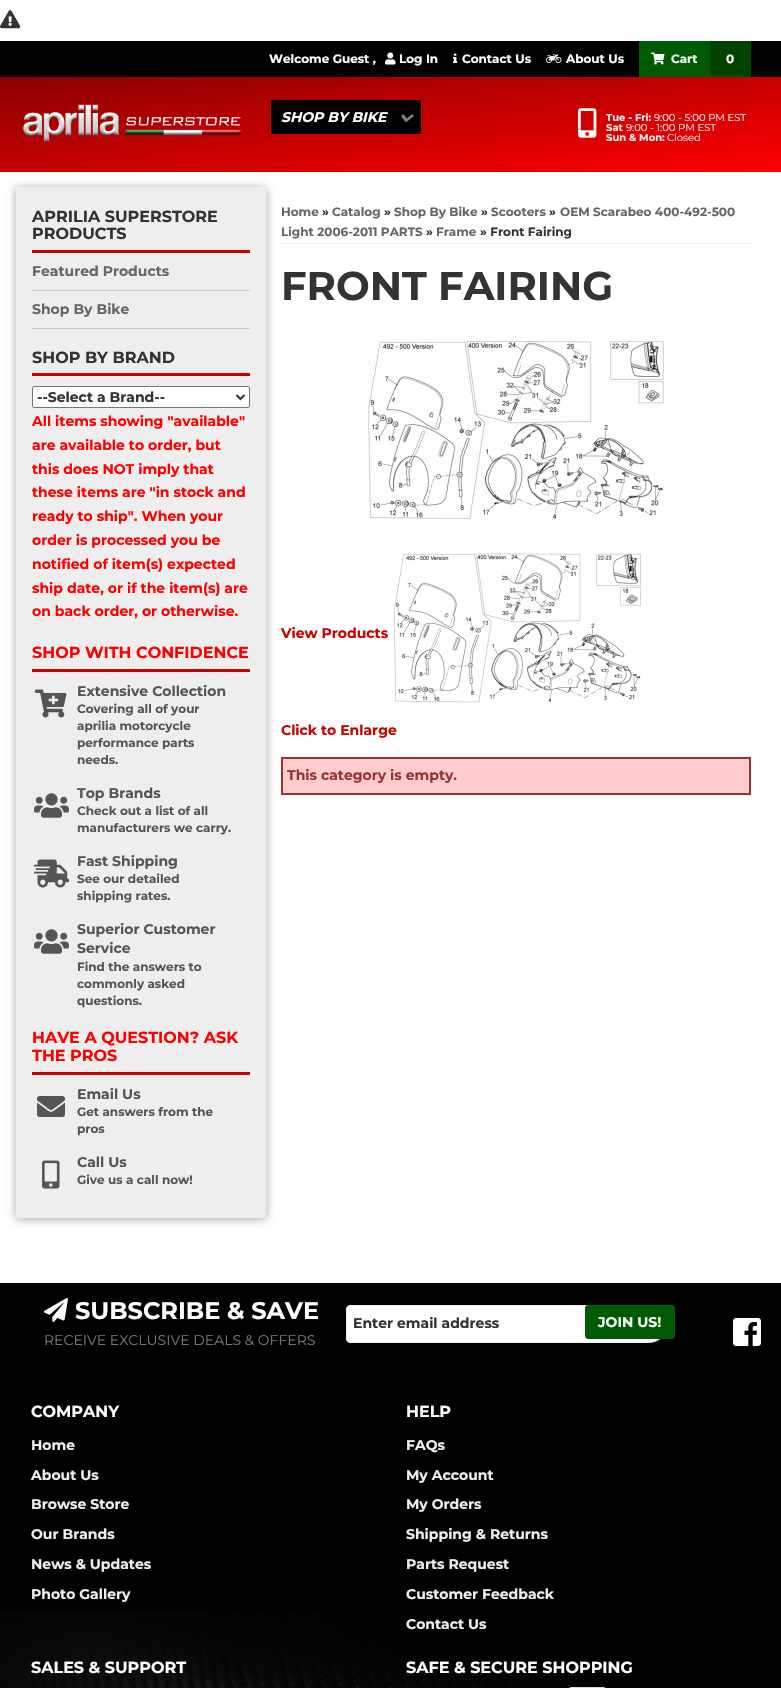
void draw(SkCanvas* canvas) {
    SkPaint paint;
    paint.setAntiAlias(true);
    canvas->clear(0xFFFFFFFF);
    canvas->drawImageRect(SkImages::DeferredFromEncodedData(SkData::MakeFromFileName("img1.png")), SkRect::MakeXYWH(0, 10, 21, 19), SkSamplingOptions());
    paint.setColor(0xFF000000);
    canvas->drawRect(SkRect::MakeXYWH(0, 41, 781, 36), paint);
    SkFont font1(fontMgr->matchFamilyStyle("Montserrat", SkFontStyle::Bold()), 12);
    font1.setSubpixel(true);
    paint.setColor(0xFFFFFFFF);
    canvas->drawString("Welcome Guest ,", 269, 63, font1, paint);
    canvas->drawImageRect(SkImages::DeferredFromEncodedData(SkData::MakeFromFileName("img2.png")), SkRect::MakeXYWH(385, 52, 11, 13), SkSamplingOptions());
    canvas->drawString("Log In", 399, 63, font1, paint);
    canvas->drawImageRect(SkImages::DeferredFromEncodedData(SkData::MakeFromFileName("img3.png")), SkRect::MakeXYWH(453, 53, 5, 10), SkSamplingOptions());
    canvas->drawString("Contact Us", 462, 63, font1, paint);
    canvas->drawImageRect(SkImages::DeferredFromEncodedData(SkData::MakeFromFileName("img4.png")), SkRect::MakeXYWH(546, 54, 16, 9), SkSamplingOptions());
    canvas->drawString("About Us", 566, 63, font1, paint);
    paint.setColor(0xFF005A02);
    canvas->drawRect(SkRect::MakeXYWH(639, 41, 112, 36), paint);
    canvas->drawImageRect(SkImages::DeferredFromEncodedData(SkData::MakeFromFileName("img5.png")), SkRect::MakeXYWH(651, 52, 14, 13), SkSamplingOptions());
    paint.setColor(0xFFFFFFFF);
    canvas->drawString("Cart", 671, 63, font1, paint);
    paint.setColor(0xFF004301);
    canvas->drawRect(SkRect::MakeXYWH(710, 41, 41, 35), paint);
    paint.setColor(0xFFFFFFFF);
    canvas->drawString("0", 726, 63, font1, paint);
    {
        const SkColor colors[] = {0xFF8B0000, 0xFFFF0000};
        const float stops[] = {0, 1};
        const SkPoint ends[] = {{379, 31}, {402, 218}};
        paint.setShader(SkGradientShader::MakeLinear(ends, colors, stops, 2, SkTileMode::kClamp));
        paint.setAlpha(255);
    }
    canvas->drawRect(SkRect::MakeXYWH(0, 77, 781, 95), paint);
    canvas->drawImageRect(SkImages::DeferredFromEncodedData(SkData::MakeFromFileName("img6.png")), SkRect::MakeXYWH(22, 104, 219, 38), SkSamplingOptions());
    paint.setShader(nullptr);
    paint.setColor(0xFF000000);
    canvas->drawRect(SkRect::MakeXYWH(271, 100, 150, 34), paint);
    SkFont font2(fontMgr->matchFamilyStyle("Montserrat", SkFontStyle::BoldItalic()), 14);
    font2.setSubpixel(true);
    paint.setColor(0xFFFFFFFF);
    canvas->drawString("SHOP BY BIKE", 281, 122, font2, paint);
    canvas->drawImageRect(SkImages::DeferredFromEncodedData(SkData::MakeFromFileName("img7.png")), SkRect::MakeXYWH(401, 114, 13, 9), SkSamplingOptions());
    canvas->drawImageRect(SkImages::DeferredFromEncodedData(SkData::MakeFromFileName("img8.png")), SkRect::MakeXYWH(578, 108, 19, 30), SkSamplingOptions());
    SkFont font3(fontMgr->matchFamilyStyle("Montserrat", SkFontStyle::Bold()), 10);
    font3.setSubpixel(true);
    paint.setColor(0xFFEEEEEE);
    canvas->drawString("Tue - Fri:", 606, 121, font3, paint);
    SkFont font4(fontMgr->matchFamilyStyle("Montserrat", SkFontStyle::Normal()), 10);
    font4.setSubpixel(true);
    canvas->drawString("9:00 - 5:00 PM EST", 654, 121, font4, paint);
    canvas->drawString("Sat", 606, 131, font3, paint);
    canvas->drawString("9:00 - 1:00 PM EST", 626, 131, font4, paint);
    canvas->drawString("Sun & Mon:", 606, 141, font3, paint);
    canvas->drawString("Closed", 667, 141, font4, paint);
    canvas->drawRect(SkRect::MakeXYWH(281, 243, 470, 1), paint);
    paint.setColor(0xFFFFCCCC);
    canvas->drawRect(SkRect::MakeXYWH(282, 758, 468, 36), paint);
    paint.setStyle(SkPaint::kStroke_Style);
    paint.setStrokeWidth(2);
    paint.setColor(0xFF993333);
    canvas->drawRect(SkRect::MakeXYWH(282, 758, 468, 36), paint);
    paint.setStyle(SkPaint::kFill_Style);
    paint.setColor(0x59000000);
    paint.setMaskFilter(SkMaskFilter::MakeBlur(kNormal_SkBlurStyle, 5));
    canvas->drawRoundRect(SkRect::MakeXYWH(16, 188, 250, 1031), 2, 2, paint);
    paint.setMaskFilter(nullptr);
    paint.setColor(0xFFEEEEEE);
    canvas->drawRoundRect(SkRect::MakeXYWH(16, 187, 250, 1031), 2, 2, paint);
    paint.setColor(0xFFC60200);
    canvas->drawRect(SkRect::MakeXYWH(32, 250, 218, 3), paint);
    SkFont font5(fontMgr->matchFamilyStyle("Montserrat", SkFontStyle::Bold()), 16);
    font5.setSubpixel(true);
    paint.setColor(0xFF333333);
    canvas->drawString("APRILIA SUPERSTORE", 32, 222, font5, paint);
    canvas->drawString("PRODUCTS", 32, 239, font5, paint);
    paint.setColor(0xFFCCCCCC);
    canvas->drawRect(SkRect::MakeXYWH(32, 290, 218, 1), paint);
    SkFont font6(fontMgr->matchFamilyStyle("Montserrat", SkFontStyle::Bold()), 14);
    font6.setSubpixel(true);
    paint.setColor(0xFF666666);
    canvas->drawString("Featured Products", 32, 276, font6, paint);
    paint.setColor(0xFFCCCCCC);
    canvas->drawRect(SkRect::MakeXYWH(32, 328, 218, 1), paint);
    paint.setColor(0xFF666666);
    canvas->drawString("Shop By Bike", 32, 314, font6, paint);
    paint.setColor(0xFFC60200);
    canvas->drawRect(SkRect::MakeXYWH(32, 373, 218, 3), paint);
    paint.setColor(0xFF333333);
    canvas->drawString("SHOP BY BRAND", 32, 363, font5, paint);
    paint.setColor(0xFFFFFFFF);
    canvas->drawRoundRect(SkRect::MakeXYWH(32.5f, 386.5f, 217, 21), 1.5f, 1.5f, paint);
    paint.setStyle(SkPaint::kStroke_Style);
    paint.setStrokeWidth(1);
    paint.setColor(0xFF767676);
    canvas->drawRoundRect(SkRect::MakeXYWH(32.5f, 386.5f, 217, 21), 1.5f, 1.5f, paint);
    paint.setStrokeWidth(2);
    paint.setColor(0xFF333333);
    canvas->drawPath(SkPathBuilder().moveTo(236.5f, 395).lineTo(240.5f, 399).lineTo(244.5f, 395).detach(), paint);
    paint.setStyle(SkPaint::kFill_Style);
    canvas->drawString("--Select a Brand--", 37, 402, font6, paint);
    paint.setColor(0xFFFF0000);
    canvas->drawString("All items showing \"available\"", 32, 426, font6, paint);
    canvas->drawString("are available to order, but", 32, 450, font6, paint);
    canvas->drawString("this does NOT imply that", 32, 474, font6, paint);
    canvas->drawString("these items are \"in stock and", 32, 497, font6, paint);
    canvas->drawString("ready to ship\". When your", 32, 521, font6, paint);
    canvas->drawString("order is processed you be", 32, 545, font6, paint);
    canvas->drawString("notified of item(s) expected", 32, 569, font6, paint);
    canvas->drawString("ship date, or if the item(s) are", 32, 593, font6, paint);
    canvas->drawString("on back order, or otherwise.", 32, 616, font6, paint);
    paint.setColor(0xFFC60200);
    canvas->drawRect(SkRect::MakeXYWH(32, 669, 218, 3), paint);
    paint.setColor(0xFFFF0000);
    canvas->drawString("SHOP WITH CONFIDENCE", 32, 658, font5, paint);
    canvas->drawImageRect(SkImages::DeferredFromEncodedData(SkData::MakeFromFileName("img9.png")), SkRect::MakeXYWH(35, 689, 32, 29), SkSamplingOptions());
    paint.setColor(0xFF555555);
    canvas->drawString("Extensive Collection", 77, 696, font6, paint);
    canvas->drawString("Covering all of your", 77, 713, font1, paint);
    canvas->drawString("aprilia motorcycle", 77, 730, font1, paint);
    canvas->drawString("performance parts", 77, 747, font1, paint);
    canvas->drawString("needs.", 77, 764, font1, paint);
    canvas->drawImageRect(SkImages::DeferredFromEncodedData(SkData::MakeFromFileName("img10.png")), SkRect::MakeXYWH(34, 793, 35, 25), SkSamplingOptions());
    canvas->drawString("Top Brands", 77, 798, font6, paint);
    canvas->drawString("Check out a list of all", 77, 815, font1, paint);
    canvas->drawString("manufacturers we carry.", 77, 832, font1, paint);
    canvas->drawImageRect(SkImages::DeferredFromEncodedData(SkData::MakeFromFileName("img11.png")), SkRect::MakeXYWH(34, 859, 35, 29), SkSamplingOptions());
    canvas->drawString("Fast Shipping", 77, 866, font6, paint);
    canvas->drawString("See our detailed", 77, 883, font1, paint);
    canvas->drawString("shipping rates.", 77, 900, font1, paint);
    canvas->drawImageRect(SkImages::DeferredFromEncodedData(SkData::MakeFromFileName("img10.png")), SkRect::MakeXYWH(34, 929, 35, 25), SkSamplingOptions());
    canvas->drawString("Superior Customer", 77, 934, font6, paint);
    canvas->drawString("Service", 77, 953, font6, paint);
    canvas->drawString("Find the answers to", 77, 971, font1, paint);
    canvas->drawString("commonly asked", 77, 988, font1, paint);
    canvas->drawString("questions.", 77, 1005, font1, paint);
    paint.setColor(0xFFC60200);
    canvas->drawRect(SkRect::MakeXYWH(32, 1072, 218, 3), paint);
    paint.setColor(0xFFFF0000);
    canvas->drawString("HAVE A QUESTION? ASK", 32, 1043, font5, paint);
    canvas->drawString("THE PROS", 32, 1061, font5, paint);
    paint.setColor(0xFF555555);
    canvas->drawString("Email Us", 77, 1099, font6, paint);
    canvas->drawImageRect(SkImages::DeferredFromEncodedData(SkData::MakeFromFileName("img12.png")), SkRect::MakeXYWH(37, 1096, 28, 21), SkSamplingOptions());
    canvas->drawString("Get answers from the", 77, 1116, font1, paint);
    canvas->drawString("pros", 77, 1133, font1, paint);
    canvas->drawImageRect(SkImages::DeferredFromEncodedData(SkData::MakeFromFileName("img13.png")), SkRect::MakeXYWH(42, 1160, 18, 29), SkSamplingOptions());
    canvas->drawString("Call Us", 77, 1167, font6, paint);
    canvas->drawString("Give us a call now!", 77, 1184, font1, paint);
    paint.setColor(0xFF666666);
    canvas->drawString("Home", 281, 216, font1, paint);
    paint.setColor(0xFF333333);
    canvas->drawString("»", 322, 216, font1, paint);
    paint.setColor(0xFF666666);
    canvas->drawString("Catalog", 332, 216, font1, paint);
    paint.setColor(0xFF333333);
    canvas->drawString("»", 384, 216, font1, paint);
    paint.setColor(0xFF666666);
    canvas->drawString("Shop By Bike", 394, 216, font1, paint);
    paint.setColor(0xFF333333);
    canvas->drawString("»", 481, 216, font1, paint);
    paint.setColor(0xFF666666);
    canvas->drawString("Scooters", 491, 216, font1, paint);
    paint.setColor(0xFF333333);
    canvas->drawString("»", 549, 216, font1, paint);
    paint.setColor(0xFF666666);
    canvas->drawString("OEM Scarabeo 400-492-500", 560, 216, font1, paint);
    canvas->drawString("Light 2006-2011 PARTS", 281, 236, font1, paint);
    paint.setColor(0xFF333333);
    canvas->drawString("»", 426, 236, font1, paint);
    paint.setColor(0xFF666666);
    canvas->drawString("Frame", 436, 236, font1, paint);
    paint.setColor(0xFF333333);
    canvas->drawString("» Front Fairing", 480, 236, font1, paint);
    SkFont font7(fontMgr->matchFamilyStyle("Montserrat", SkFontStyle::Bold()), 40);
    font7.setSubpixel(true);
    canvas->drawString("FRONT FAIRING", 281, 300, font7, paint);
    canvas->drawImageRect(SkImages::DeferredFromEncodedData(SkData::MakeFromFileName("img14.png")), SkRect::MakeXYWH(368, 341, 296, 178), SkSamplingOptions());
    paint.setColor(0xFFCB0000);
    canvas->drawString("View Products", 281, 638, font6, paint);
    canvas->drawImageRect(SkImages::DeferredFromEncodedData(SkData::MakeFromFileName("img15.png")), SkRect::MakeXYWH(393, 553, 248, 150), SkSamplingOptions());
    canvas->drawString("Click to Enlarge", 281, 735, font6, paint);
    paint.setColor(0xFF993333);
    canvas->drawString("This category is empty.", 287, 780, font6, paint);
    paint.setColor(0xFF000000);
    canvas->drawRect(SkRect::MakeXYWH(0, 1283, 781, 405), paint);
    canvas->drawImageRect(SkImages::DeferredFromEncodedData(SkData::MakeFromFileName("img16.png")), SkRect::MakeXYWH(0, 1609, 607, 79), SkSamplingOptions());
    canvas->drawImageRect(SkImages::DeferredFromEncodedData(SkData::MakeFromFileName("img17.png")), SkRect::MakeXYWH(44, 1298, 24, 24), SkSamplingOptions());
    SkFont font8(fontMgr->matchFamilyStyle("Montserrat", SkFontStyle::Bold()), 24);
    font8.setSubpixel(true);
    paint.setColor(0xFFFFFFFF);
    canvas->drawString("SUBSCRIBE & SAVE", 75, 1319, font8, paint);
    SkFont font9(fontMgr->matchFamilyStyle("Montserrat", SkFontStyle::Normal()), 14);
    font9.setSubpixel(true);
    paint.setColor(0xFF777777);
    canvas->drawString("RECEIVE EXCLUSIVE DEALS & OFFERS", 44, 1345, font9, paint);
    paint.setColor(0xFFFFFFFF);
    canvas->drawPath(SkPathBuilder().moveTo(350, 1305.5f).lineTo(649, 1305.5f).cubicTo(659, 1305.5f, 667.5f, 1314, 667.5f, 1324).cubicTo(667.5f, 1334, 659, 1342.5f, 649, 1342.5f).lineTo(350, 1342.5f).cubicTo(348, 1342.5f, 346.5f, 1341, 346.5f, 1339).lineTo(346.5f, 1309).cubicTo(346.5f, 1307, 348, 1305.5f, 350, 1305.5f).close().detach(), paint);
    paint.setStyle(SkPaint::kStroke_Style);
    paint.setStrokeWidth(1);
    paint.setColor(0xFFEEEEEE);
    canvas->drawPath(SkPathBuilder().moveTo(350, 1305.5f).lineTo(649, 1305.5f).cubicTo(659, 1305.5f, 667.5f, 1314, 667.5f, 1324).cubicTo(667.5f, 1334, 659, 1342.5f, 649, 1342.5f).lineTo(350, 1342.5f).cubicTo(348, 1342.5f, 346.5f, 1341, 346.5f, 1339).lineTo(346.5f, 1309).cubicTo(346.5f, 1307, 348, 1305.5f, 350, 1305.5f).close().detach(), paint);
    paint.setStyle(SkPaint::kFill_Style);
    paint.setColor(0xFF333333);
    canvas->drawString("Enter email address", 353, 1328, font6, paint);
    paint.setColor(0xFF005A02);
    canvas->drawRoundRect(SkRect::MakeXYWH(585.5f, 1305.5f, 89, 33), 2.5f, 2.5f, paint);
    paint.setStyle(SkPaint::kStroke_Style);
    canvas->drawRoundRect(SkRect::MakeXYWH(585.5f, 1305.5f, 89, 33), 2.5f, 2.5f, paint);
    paint.setStyle(SkPaint::kFill_Style);
    paint.setColor(0xFFFFFFFF);
    canvas->drawString("JOIN US!", 598, 1327, font6, paint);
    canvas->drawImageRect(SkImages::DeferredFromEncodedData(SkData::MakeFromFileName("img18.png")), SkRect::MakeXYWH(733, 1318, 28, 28), SkSamplingOptions());
    canvas->drawString("COMPANY", 31, 1417, font5, paint);
    paint.setColor(0xFFEEEEEE);
    canvas->drawString("Home", 31, 1450, font6, paint);
    canvas->drawString("About Us", 31, 1480, font6, paint);
    canvas->drawString("Browse Store", 31, 1509, font6, paint);
    canvas->drawString("Our Brands", 31, 1539, font6, paint);
    canvas->drawString("News & Updates", 31, 1569, font6, paint);
    canvas->drawString("Photo Gallery", 31, 1599, font6, paint);
    paint.setColor(0xFFFFFFFF);
    canvas->drawString("HELP", 406, 1417, font5, paint);
    paint.setColor(0xFFEEEEEE);
    canvas->drawString("FAQs", 406, 1450, font6, paint);
    canvas->drawString("My Account", 406, 1480, font6, paint);
    canvas->drawString("My Orders", 406, 1509, font6, paint);
    canvas->drawString("Shipping & Returns", 406, 1539, font6, paint);
    canvas->drawString("Parts Request", 406, 1569, font6, paint);
    canvas->drawString("Customer Feedback", 406, 1599, font6, paint);
    canvas->drawString("Contact Us", 406, 1629, font6, paint);
    paint.setColor(0xFFFFFFFF);
    canvas->drawString("SALES & SUPPORT", 31, 1673, font5, paint);
    canvas->drawString("SAFE & SECURE SHOPPING", 406, 1673, font5, paint);
    canvas->drawImageRect(SkImages::DeferredFromEncodedData(SkData::MakeFromFileName("img19.png")), SkRect::MakeXYWH(569, 1687, 37, 1), SkSamplingOptions());
}
